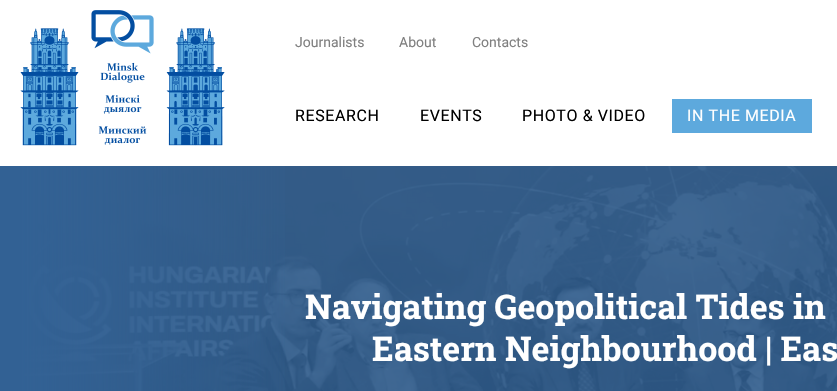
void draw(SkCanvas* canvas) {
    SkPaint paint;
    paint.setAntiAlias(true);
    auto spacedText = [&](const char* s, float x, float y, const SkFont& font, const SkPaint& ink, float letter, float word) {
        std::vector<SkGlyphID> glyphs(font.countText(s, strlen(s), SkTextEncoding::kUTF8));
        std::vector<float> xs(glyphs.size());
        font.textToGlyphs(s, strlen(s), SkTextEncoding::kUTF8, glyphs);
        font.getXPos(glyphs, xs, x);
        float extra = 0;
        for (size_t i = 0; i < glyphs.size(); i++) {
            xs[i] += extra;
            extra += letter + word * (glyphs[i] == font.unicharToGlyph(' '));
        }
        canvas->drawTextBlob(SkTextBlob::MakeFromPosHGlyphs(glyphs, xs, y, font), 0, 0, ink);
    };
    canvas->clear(0xFFFFFFFF);
    canvas->drawImageRect(SkImages::DeferredFromEncodedData(SkData::MakeFromFileName("img1.png")), SkRect::MakeXYWH(20, 10, 205, 136), SkSamplingOptions());
    SkFont font1(fontMgr->matchFamilyStyle("Roboto", SkFontStyle::Normal()), 14);
    font1.setSubpixel(true);
    paint.setColor(0xFF808080);
    canvas->drawString("Journalists", 295, 47, font1, paint);
    canvas->drawString("About", 399, 47, font1, paint);
    canvas->drawString("Contacts", 472, 47, font1, paint);
    SkFont font2(fontMgr->matchFamilyStyle("Roboto", SkFontStyle::Normal()), 16);
    font2.setSubpixel(true);
    paint.setColor(0xFF000000);
    spacedText("RESEARCH", 295, 121, font2, paint, 0.6f, 0);
    spacedText("EVENTS", 420, 121, font2, paint, 0.6f, 0);
    spacedText("PHOTO & VIDEO", 522, 121, font2, paint, 0.6f, 0);
    paint.setColor(0xFF5DA9DD);
    canvas->drawRect(SkRect::MakeXYWH(672, 99, 140, 34), paint);
    paint.setColor(0xFFFFFFFF);
    spacedText("IN THE MEDIA", 687, 121, font2, paint, 0.6f, 0);
    paint.setColor(0xFF326194);
    canvas->drawRect(SkRect::MakeXYWH(0, 166, 837, 225), paint);
    canvas->drawImageRect(SkImages::DeferredFromEncodedData(SkData::MakeFromFileName("img2.png")), SkRect::MakeXYWH(22, 166, 815, 225), SkSamplingOptions());
    {
        const SkColor colors[] = {0xFF326194, 0x03326194};
        const float stops[] = {0, 1};
        const SkPoint ends[] = {{20, 391}, {320, 391}};
        paint.setShader(SkGradientShader::MakeLinear(ends, colors, stops, 2, SkTileMode::kClamp));
        paint.setAlpha(255);
    }
    canvas->drawRect(SkRect::MakeXYWH(22, 166, 263, 225), paint);
    SkFont font3(fontMgr->matchFamilyStyle("Roboto Slab", SkFontStyle::Bold()), 34);
    font3.setSubpixel(true);
    paint.setShader(nullptr);
    paint.setColor(0xFFFFFFFF);
    canvas->drawString("Navigating Geopolitical Tides in", 305, 319, font3, paint);
    canvas->drawString("Eastern Neighbourhood | Eas", 372, 361, font3, paint);
}
